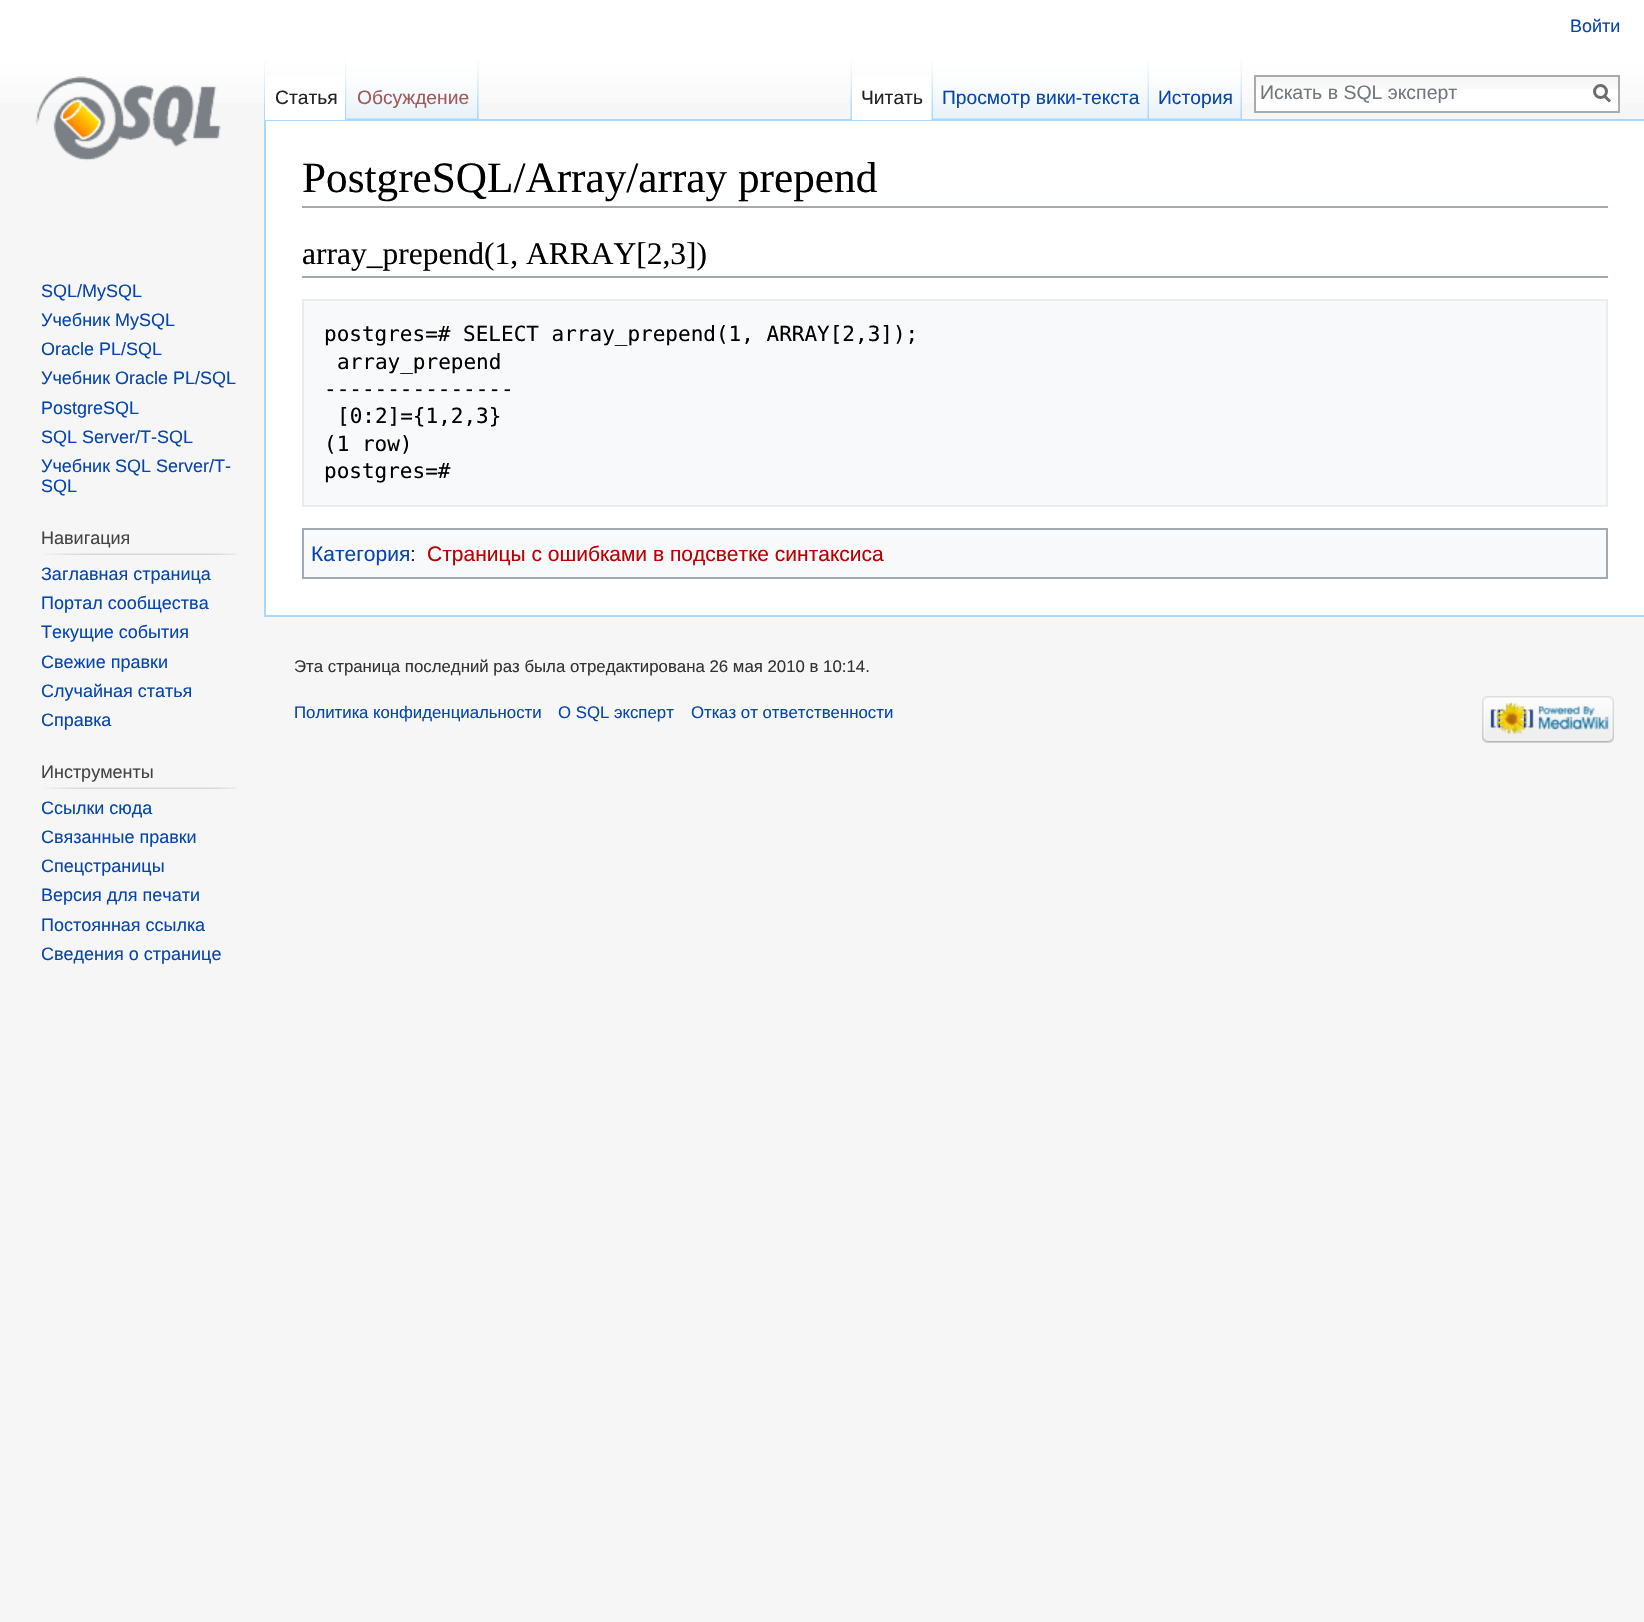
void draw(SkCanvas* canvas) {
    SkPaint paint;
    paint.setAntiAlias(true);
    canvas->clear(0xFFF6F6F6);
    {
        const SkColor colors[] = {0xFFFFFFFF, 0xFFF6F6F6};
        const float stops[] = {0.5f, 1};
        const SkPoint ends[] = {{822, 0}, {822, 120}};
        paint.setShader(SkGradientShader::MakeLinear(ends, colors, stops, 2, SkTileMode::kClamp));
        paint.setAlpha(255);
    }
    canvas->drawRect(SkRect::MakeXYWH(0, 0, 1644, 103), paint);
    SkFont font1(fontMgr->matchFamilyStyle("Liberation Sans", SkFontStyle::Normal()), 18);
    font1.setSubpixel(true);
    paint.setShader(nullptr);
    paint.setColor(0xFF0645AD);
    canvas->drawString("Войти", 1570, 32, font1, paint);
    canvas->drawImageRect(SkImages::DeferredFromEncodedData(SkData::MakeFromFileName("img1.png")), SkRect::MakeXYWH(264, 60, 1, 59), SkSamplingOptions());
    canvas->drawImageRect(SkImages::DeferredFromEncodedData(SkData::MakeFromFileName("img2.png")), SkRect::MakeXYWH(478, 60, 1, 59), SkSamplingOptions());
    paint.setColor(0xFFA7D7F9);
    canvas->drawRect(SkRect::MakeXYWH(264, 119, 1380, 2), paint);
    canvas->drawRect(SkRect::MakeXYWH(264, 615, 1380, 2), paint);
    canvas->drawRect(SkRect::MakeXYWH(264, 119, 2, 498), paint);
    paint.setColor(0xFFFFFFFF);
    canvas->drawRect(SkRect::MakeXYWH(265, 77, 82, 43), paint);
    canvas->drawImageRect(SkImages::DeferredFromEncodedData(SkData::MakeFromFileName("img3.png")), SkRect::MakeXYWH(345, 60, 2, 60), SkSamplingOptions());
    SkFont font2(fontMgr->matchFamilyStyle("Liberation Sans", SkFontStyle::Normal()), 19.25f);
    font2.setSubpixel(true);
    paint.setColor(0xFF222222);
    canvas->drawString("Статья", 275, 104, font2, paint);
    canvas->drawImageRect(SkImages::DeferredFromEncodedData(SkData::MakeFromFileName("img4.png")), SkRect::MakeXYWH(346, 60, 133, 60), SkSamplingOptions());
    canvas->drawImageRect(SkImages::DeferredFromEncodedData(SkData::MakeFromFileName("img5.png")), SkRect::MakeXYWH(477, 60, 2, 60), SkSamplingOptions());
    paint.setColor(0xFFA55858);
    canvas->drawString("Обсуждение", 357, 104, font2, paint);
    canvas->drawImageRect(SkImages::DeferredFromEncodedData(SkData::MakeFromFileName("img6.png")), SkRect::MakeXYWH(850, 60, 2, 59), SkSamplingOptions());
    paint.setColor(0xFFFFFFFF);
    canvas->drawRect(SkRect::MakeXYWH(852, 77, 80, 43), paint);
    canvas->drawImageRect(SkImages::DeferredFromEncodedData(SkData::MakeFromFileName("img7.png")), SkRect::MakeXYWH(931, 60, 2, 60), SkSamplingOptions());
    paint.setColor(0xFF222222);
    canvas->drawString("Читать", 861, 104, font2, paint);
    canvas->drawImageRect(SkImages::DeferredFromEncodedData(SkData::MakeFromFileName("img8.png")), SkRect::MakeXYWH(933, 60, 216, 60), SkSamplingOptions());
    canvas->drawImageRect(SkImages::DeferredFromEncodedData(SkData::MakeFromFileName("img9.png")), SkRect::MakeXYWH(1147, 60, 2, 59), SkSamplingOptions());
    paint.setColor(0xFF0645AD);
    canvas->drawString("Просмотр вики-текста", 942, 104, font2, paint);
    canvas->drawImageRect(SkImages::DeferredFromEncodedData(SkData::MakeFromFileName("img10.png")), SkRect::MakeXYWH(1149, 60, 93, 60), SkSamplingOptions());
    canvas->drawImageRect(SkImages::DeferredFromEncodedData(SkData::MakeFromFileName("img9.png")), SkRect::MakeXYWH(1240, 60, 2, 59), SkSamplingOptions());
    canvas->drawString("История", 1158, 104, font2, paint);
    paint.setColor(0xFFFFFFFF);
    canvas->drawRect(SkRect::MakeXYWH(1256, 89, 362, 22), paint);
    canvas->drawImageRect(SkImages::DeferredFromEncodedData(SkData::MakeFromFileName("img11.png")), SkRect::MakeXYWH(1256, 77, 362, 12), SkSamplingOptions());
    paint.setStyle(SkPaint::kStroke_Style);
    paint.setStrokeWidth(2);
    paint.setColor(0xFFAAAAAA);
    canvas->drawRect(SkRect::MakeXYWH(1255, 76, 364, 36), paint);
    SkFont font3(fontMgr->matchFamilyStyle("Liberation Sans", SkFontStyle::Normal()), 19.5f);
    font3.setSubpixel(true);
    paint.setStyle(SkPaint::kFill_Style);
    paint.setColor(0xFF72777D);
    canvas->drawString("Искать в SQL эксперт", 1260, 99, font3, paint);
    paint.setStyle(SkPaint::kStroke_Style);
    paint.setStrokeWidth(3);
    paint.setColor(0xFF6C6C6C);
    canvas->drawPath(SkPathBuilder().moveTo(1610, 101.5f).lineTo(1604, 95.5f).detach(), paint);
    canvas->drawCircle(1600.5f, 91.5f, 6, paint);
    canvas->drawImageRect(SkImages::DeferredFromEncodedData(SkData::MakeFromFileName("img12.png")), SkRect::MakeXYWH(35, 76, 186, 85), SkSamplingOptions());
    paint.setStyle(SkPaint::kFill_Style);
    paint.setColor(0xFF0645AD);
    canvas->drawString("SQL/MySQL", 41, 297, font1, paint);
    canvas->drawString("Учебник MySQL", 41, 326, font1, paint);
    canvas->drawString("Oracle PL/SQL", 41, 355, font1, paint);
    canvas->drawString("Учебник Oracle PL/SQL", 41, 384, font1, paint);
    canvas->drawString("PostgreSQL", 41, 414, font1, paint);
    canvas->drawString("SQL Server/T-SQL", 41, 443, font1, paint);
    canvas->drawString("Учебник SQL Server/T-", 41, 472, font1, paint);
    canvas->drawString("SQL", 41, 492, font1, paint);
    paint.setColor(0xFF444444);
    canvas->drawString("Навигация", 41, 544, font1, paint);
    canvas->drawImageRect(SkImages::DeferredFromEncodedData(SkData::MakeFromFileName("img13.png")), SkRect::MakeXYWH(44, 553, 193, 2), SkSamplingOptions());
    paint.setColor(0xFF0645AD);
    canvas->drawString("Заглавная страница", 41, 580, font1, paint);
    canvas->drawString("Портал сообщества", 41, 609, font1, paint);
    canvas->drawString("Текущие события", 41, 638, font1, paint);
    canvas->drawString("Свежие правки", 41, 668, font1, paint);
    canvas->drawString("Случайная статья", 41, 697, font1, paint);
    canvas->drawString("Справка", 41, 726, font1, paint);
    paint.setColor(0xFF444444);
    canvas->drawString("Инструменты", 41, 778, font1, paint);
    canvas->drawImageRect(SkImages::DeferredFromEncodedData(SkData::MakeFromFileName("img13.png")), SkRect::MakeXYWH(44, 787, 193, 2), SkSamplingOptions());
    paint.setColor(0xFF0645AD);
    canvas->drawString("Ссылки сюда", 41, 814, font1, paint);
    canvas->drawString("Связанные правки", 41, 843, font1, paint);
    canvas->drawString("Спецстраницы", 41, 872, font1, paint);
    canvas->drawString("Версия для печати", 41, 901, font1, paint);
    canvas->drawString("Постоянная ссылка", 41, 931, font1, paint);
    canvas->drawString("Сведения о странице", 41, 960, font1, paint);
    paint.setColor(0xFFFFFFFF);
    canvas->drawRect(SkRect::MakeXYWH(266, 121, 1378, 494), paint);
    paint.setColor(0xFFA2A9B1);
    canvas->drawRect(SkRect::MakeXYWH(302, 206, 1306, 2), paint);
    SkFont font4(fontMgr->matchFamilyStyle("Liberation Serif", SkFontStyle::Normal()), 43.25f);
    font4.setSubpixel(true);
    paint.setColor(0xFF000000);
    canvas->drawString("PostgreSQL/Array/array prepend", 302, 192, font4, paint);
    paint.setColor(0xFFA2A9B1);
    canvas->drawRect(SkRect::MakeXYWH(302, 276, 1306, 2), paint);
    SkFont font5(fontMgr->matchFamilyStyle("Liberation Serif", SkFontStyle::Normal()), 31.5f);
    font5.setSubpixel(true);
    paint.setColor(0xFF000000);
    canvas->drawString("array_prepend(1, ARRAY[2,3])", 302, 264, font5, paint);
    paint.setColor(0xFFF8F9FA);
    canvas->drawRect(SkRect::MakeXYWH(303, 300, 1304, 206), paint);
    paint.setStyle(SkPaint::kStroke_Style);
    paint.setStrokeWidth(2);
    paint.setColor(0xFFEAECF0);
    canvas->drawRect(SkRect::MakeXYWH(303, 300, 1304, 206), paint);
    SkFont font6(fontMgr->matchFamilyStyle("DejaVu Sans Mono", SkFontStyle::Normal()), 21);
    font6.setSubpixel(true);
    paint.setStyle(SkPaint::kFill_Style);
    paint.setColor(0xFF000000);
    canvas->drawString("postgres=# SELECT array_prepend(1, ARRAY[2,3]);", 324, 341, font6, paint);
    canvas->drawString("array_prepend", 337, 369, font6, paint);
    canvas->drawString("---------------", 324, 396, font6, paint);
    canvas->drawString("[0:2]={1,2,3}", 337, 423, font6, paint);
    canvas->drawString("(1 row)", 324, 451, font6, paint);
    canvas->drawString("postgres=#", 324, 478, font6, paint);
    paint.setColor(0xFFF8F9FA);
    canvas->drawRect(SkRect::MakeXYWH(303, 529, 1304, 49), paint);
    paint.setStyle(SkPaint::kStroke_Style);
    paint.setColor(0xFFA2A9B1);
    canvas->drawRect(SkRect::MakeXYWH(303, 529, 1304, 49), paint);
    SkFont font7(fontMgr->matchFamilyStyle("Liberation Sans", SkFontStyle::Normal()), 21);
    font7.setSubpixel(true);
    paint.setStyle(SkPaint::kFill_Style);
    paint.setColor(0xFF0645AD);
    canvas->drawString("Категория", 311, 561, font7, paint);
    paint.setColor(0xFF222222);
    canvas->drawString(":", 410, 561, font7, paint);
    paint.setColor(0xFFBA0000);
    canvas->drawString("Страницы с ошибками в подсветке синтаксиса", 427, 561, font7, paint);
    SkFont font8(fontMgr->matchFamilyStyle("Liberation Sans", SkFontStyle::Normal()), 16.8f);
    font8.setSubpixel(true);
    paint.setColor(0xFF333333);
    canvas->drawString("Эта страница последний раз была отредактирована 26 мая 2010 в 10:14.", 294, 672, font8, paint);
    paint.setColor(0xFF0645AD);
    canvas->drawString("Политика конфиденциальности", 294, 718, font8, paint);
    canvas->drawString("О SQL эксперт", 558, 718, font8, paint);
    canvas->drawString("Отказ от ответственности", 691, 718, font8, paint);
    canvas->drawImageRect(SkImages::DeferredFromEncodedData(SkData::MakeFromFileName("img14.png")), SkRect::MakeXYWH(1482, 696, 132, 47), SkSamplingOptions());
}
